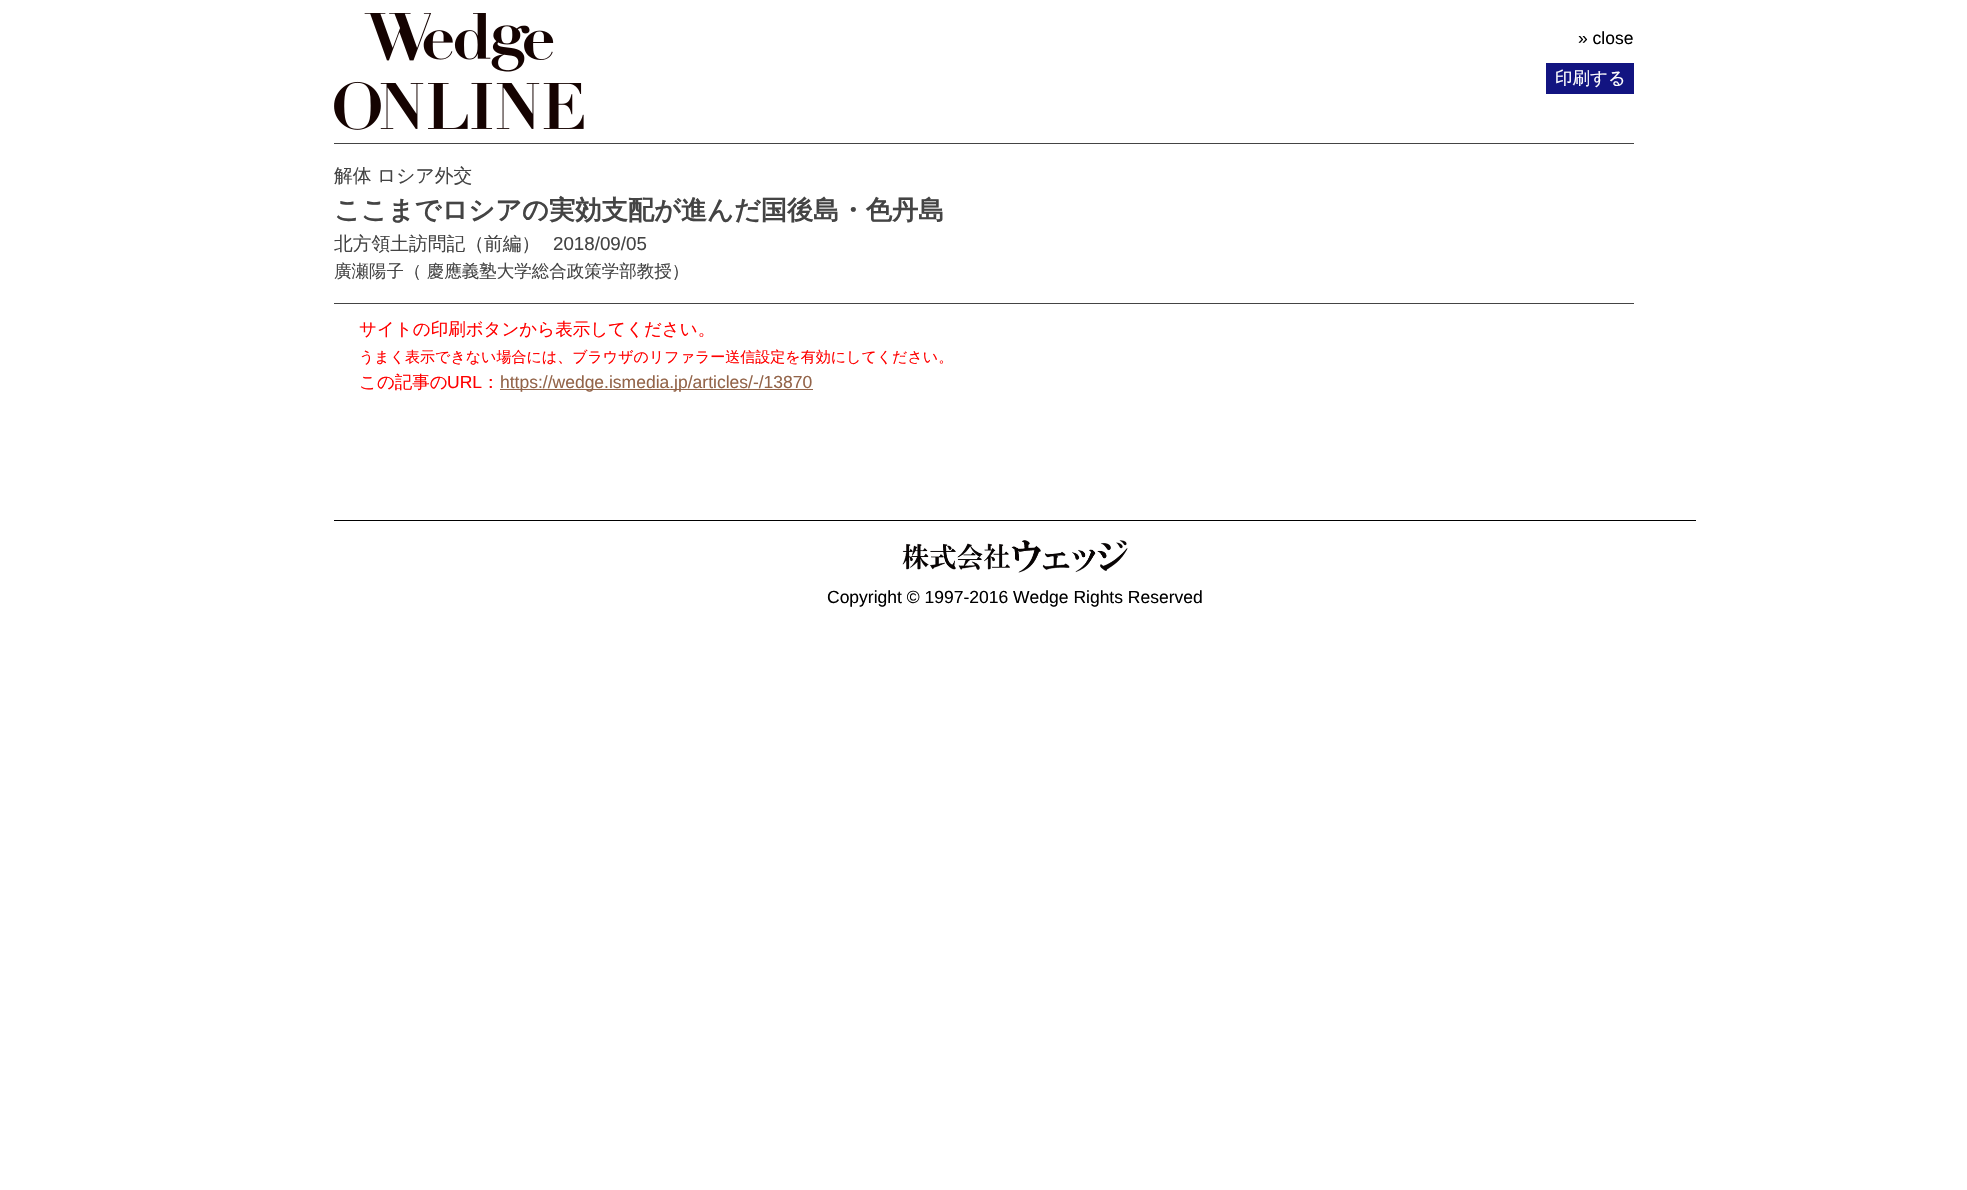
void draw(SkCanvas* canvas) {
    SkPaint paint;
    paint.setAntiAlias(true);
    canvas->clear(0xFFFFFFFF);
    canvas->drawImageRect(SkImages::DeferredFromEncodedData(SkData::MakeFromFileName("img1.png")), SkRect::MakeXYWH(334, 13, 250, 117), SkSamplingOptions());
    SkFont font1(fontMgr->matchFamilyStyle("Liberation Sans", SkFontStyle::Normal()), 17.5f);
    font1.setSubpixel(true);
    paint.setColor(0xFF000000);
    canvas->drawString("» close", 1578, 44, font1, paint);
    paint.setColor(0xFF121481);
    canvas->drawRect(SkRect::MakeXYWH(1546, 63, 88, 31), paint);
    SkFont font2(fontMgr->matchFamilyStyle("WenQuanYi Zen Hei", SkFontStyle(500, SkFontStyle::kNormal_Width, SkFontStyle::kUpright_Slant)), 17.5f);
    font2.setSubpixel(true);
    paint.setColor(0xFFFFFFFF);
    canvas->drawString("印刷する", 1555, 84, font2, paint);
    paint.setColor(0xFF444444);
    canvas->drawRect(SkRect::MakeXYWH(334, 143, 1300, 1), paint);
    canvas->drawRect(SkRect::MakeXYWH(334, 303, 1300, 1), paint);
    SkFont font3(fontMgr->matchFamilyStyle("WenQuanYi Zen Hei", SkFontStyle(500, SkFontStyle::kNormal_Width, SkFontStyle::kUpright_Slant)), 18.75f);
    font3.setSubpixel(true);
    canvas->drawString("解体 ロシア外交", 334, 182, font3, paint);
    SkFont font4(fontMgr->matchFamilyStyle("WenQuanYi Zen Hei", SkFontStyle::Bold()), 26.25f);
    font4.setSubpixel(true);
    canvas->drawString("ここまでロシアの実効支配が進んだ国後島・色丹島", 334, 219, font4, paint);
    canvas->drawString("北方領土訪問記（前編）", 334, 250, font3, paint);
    SkFont font5(fontMgr->matchFamilyStyle("Liberation Sans", SkFontStyle::Normal()), 18.75f);
    font5.setSubpixel(true);
    canvas->drawString("2018/09/05", 553, 250, font5, paint);
    canvas->drawString("廣瀬陽子", 334, 277, font2, paint);
    canvas->drawString("（ 慶應義塾大学総合政策学部教授）", 404, 277, font2, paint);
    paint.setColor(0xFFFF0000);
    canvas->drawString("サイトの印刷ボタンから表示してください。", 359, 335, font2, paint);
    SkFont font6(fontMgr->matchFamilyStyle("WenQuanYi Zen Hei", SkFontStyle(500, SkFontStyle::kNormal_Width, SkFontStyle::kUpright_Slant)), 15);
    font6.setSubpixel(true);
    canvas->drawString("うまく表示できない場合には、ブラウザのリファラー送信設定を有効にしてください。", 359, 362, font6, paint);
    canvas->drawString("この記事の", 359, 388, font2, paint);
    canvas->drawString("URL", 447, 388, font1, paint);
    canvas->drawString("：", 482, 388, font2, paint);
    paint.setColor(0xFF936449);
    canvas->drawRect(SkRect::MakeXYWH(500, 389, 313, 1), paint);
    canvas->drawString("https://wedge.ismedia.jp/articles/-/13870", 500, 388, font1, paint);
    paint.setColor(0xFF000000);
    canvas->drawRect(SkRect::MakeXYWH(334, 520, 1362, 1), paint);
    canvas->drawImageRect(SkImages::DeferredFromEncodedData(SkData::MakeFromFileName("img2.png")), SkRect::MakeXYWH(902, 540, 226, 33), SkSamplingOptions());
    canvas->drawString("Copyright © 1997-2016 Wedge Rights Reserved", 827, 603, font1, paint);
}
